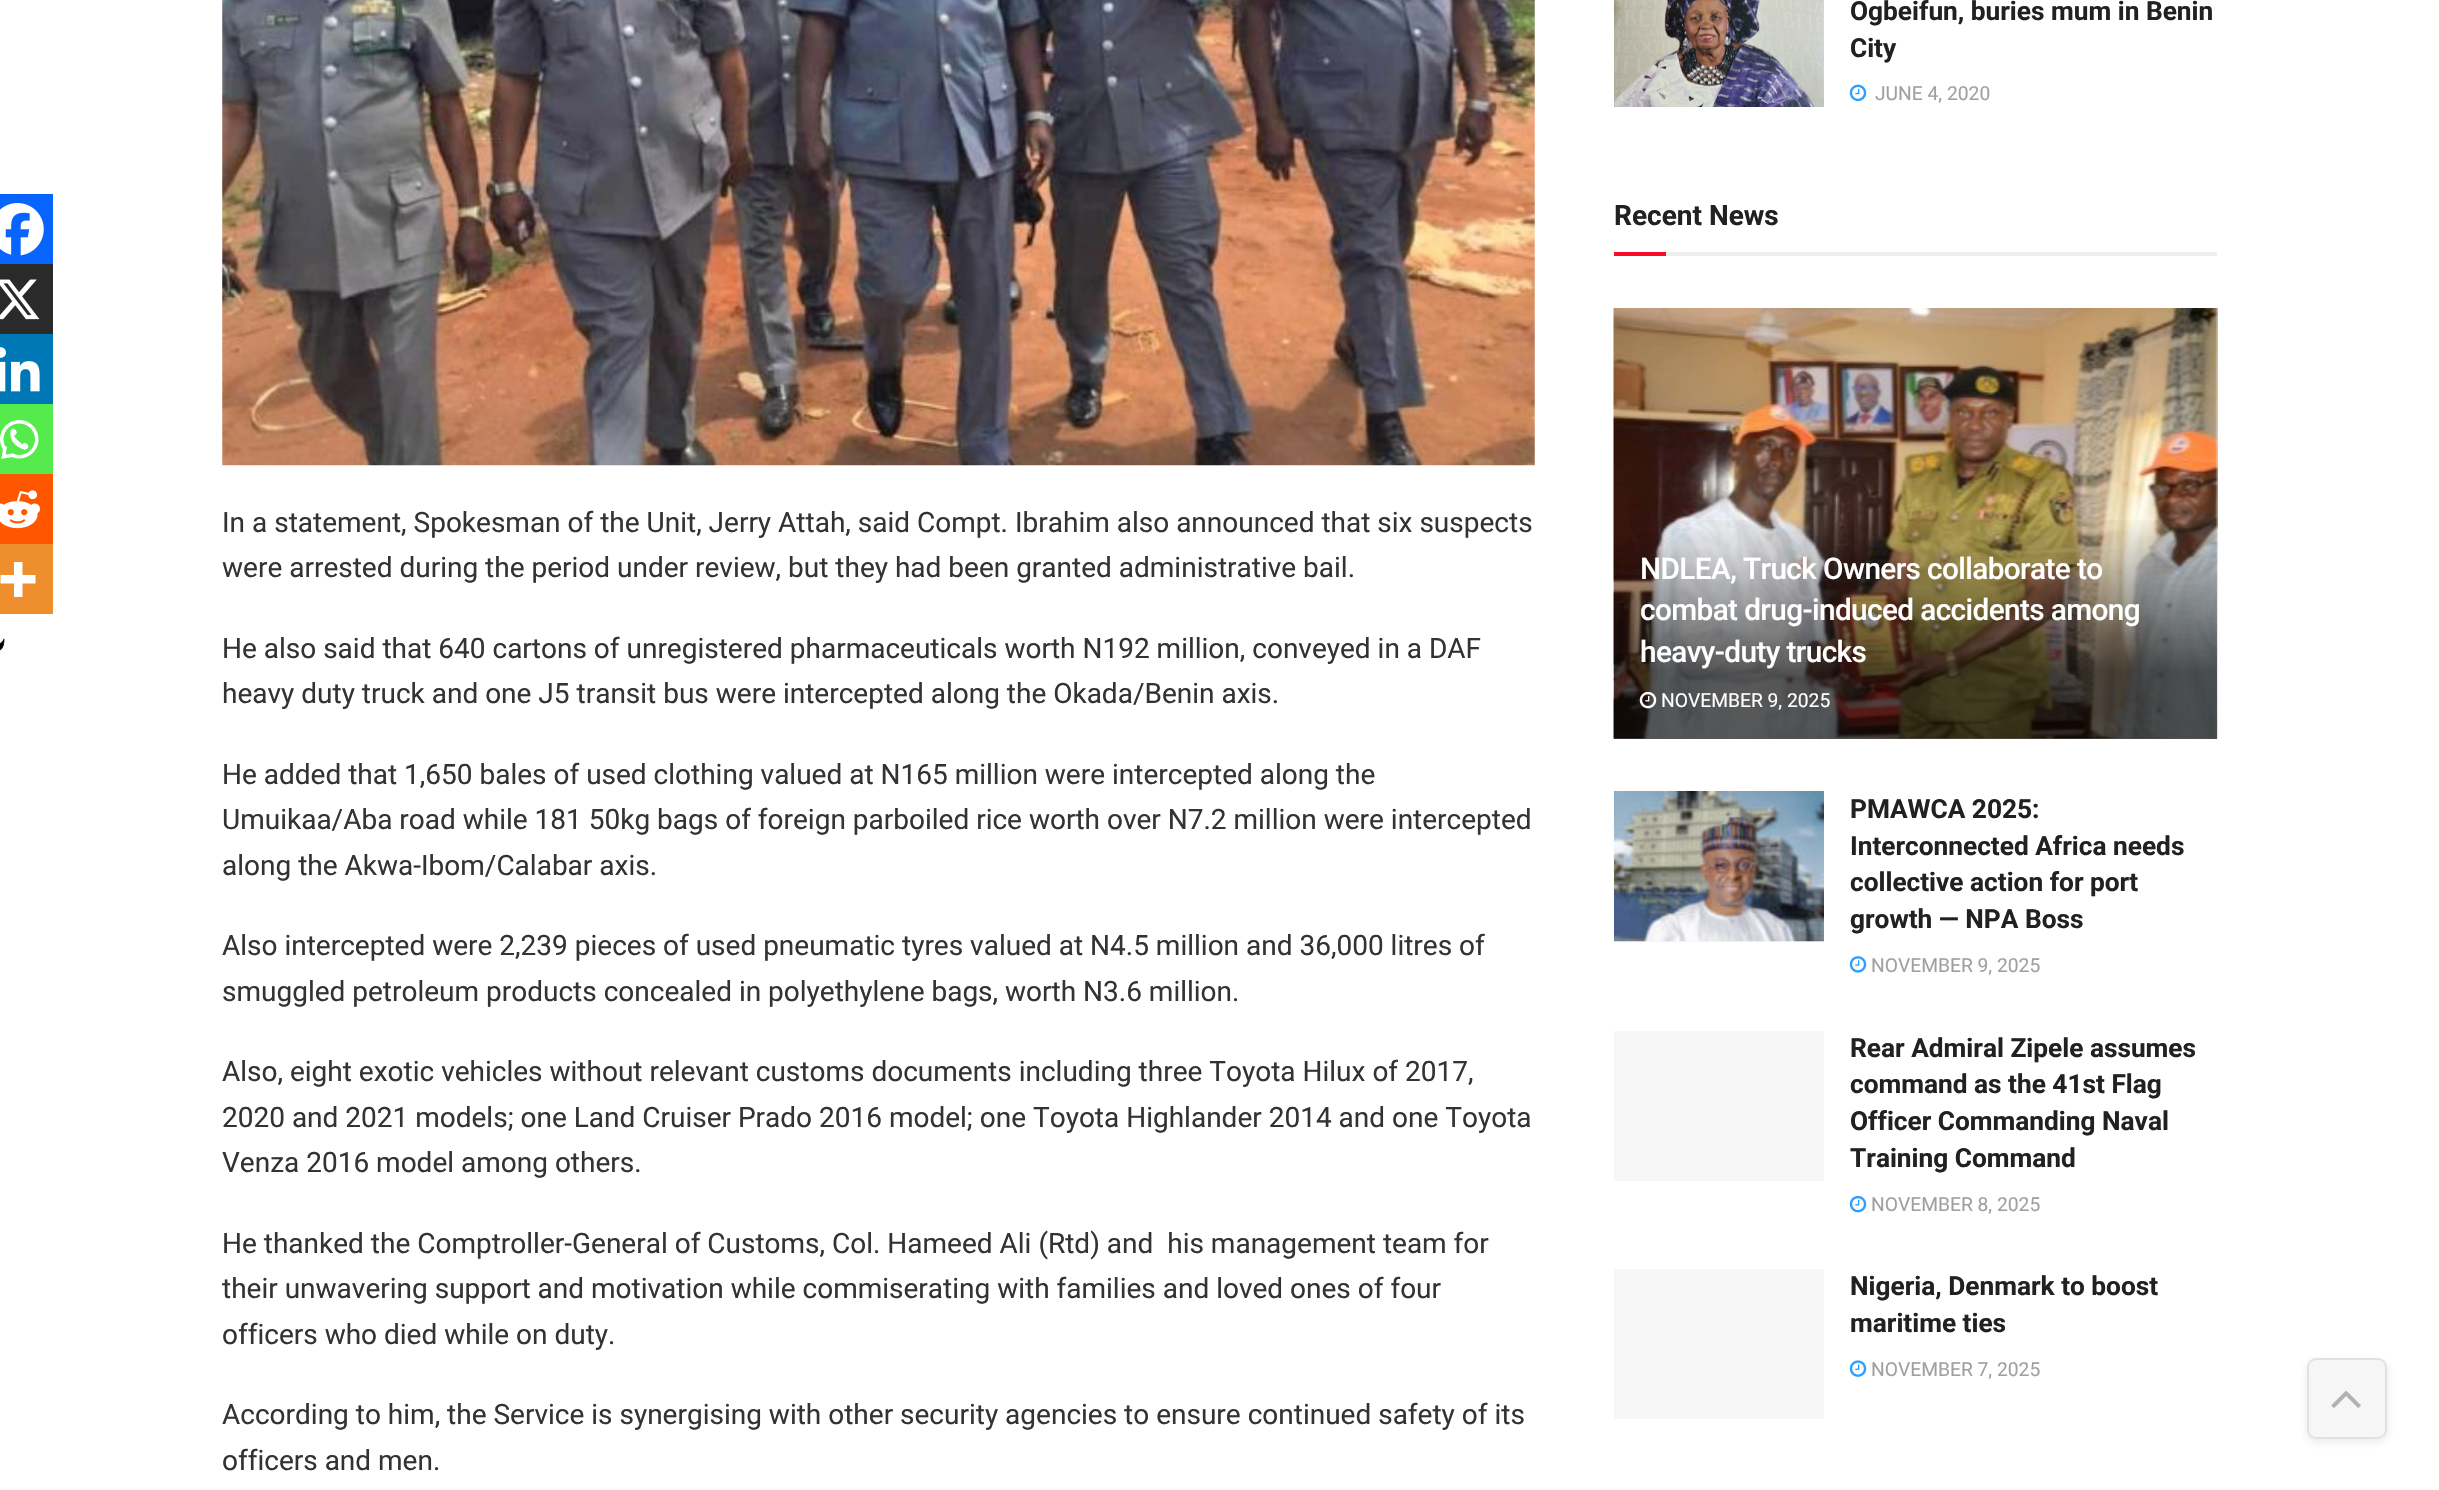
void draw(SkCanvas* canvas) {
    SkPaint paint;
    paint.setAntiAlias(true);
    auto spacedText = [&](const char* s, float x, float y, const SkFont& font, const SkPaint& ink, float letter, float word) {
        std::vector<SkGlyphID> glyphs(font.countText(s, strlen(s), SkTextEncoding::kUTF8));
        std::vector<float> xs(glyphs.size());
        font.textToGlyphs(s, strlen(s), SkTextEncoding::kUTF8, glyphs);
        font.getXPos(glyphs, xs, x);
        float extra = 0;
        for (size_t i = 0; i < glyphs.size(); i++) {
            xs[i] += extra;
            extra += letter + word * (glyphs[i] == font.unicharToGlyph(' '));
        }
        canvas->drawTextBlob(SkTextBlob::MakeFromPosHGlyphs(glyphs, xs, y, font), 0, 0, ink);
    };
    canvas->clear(0xFFFFFFFF);
    paint.setColor(0xFF0765FE);
    canvas->drawRect(SkRect::MakeXYWH(0, 194, 53, 70), paint);
    canvas->drawImageRect(SkImages::DeferredFromEncodedData(SkData::MakeFromFileName("img1.png")), SkRect::MakeXYWH(0, 203, 44, 53), SkSamplingOptions());
    paint.setColor(0xFF2A2A2A);
    canvas->drawRect(SkRect::MakeXYWH(0, 264, 53, 70), paint);
    canvas->drawImageRect(SkImages::DeferredFromEncodedData(SkData::MakeFromFileName("img2.png")), SkRect::MakeXYWH(0, 279, 40, 41), SkSamplingOptions());
    paint.setColor(0xFF0077B5);
    canvas->drawRect(SkRect::MakeXYWH(0, 334, 53, 70), paint);
    canvas->drawImageRect(SkImages::DeferredFromEncodedData(SkData::MakeFromFileName("img3.png")), SkRect::MakeXYWH(0, 347, 40, 45), SkSamplingOptions());
    paint.setColor(0xFF55EB4C);
    canvas->drawRect(SkRect::MakeXYWH(0, 404, 53, 70), paint);
    canvas->drawImageRect(SkImages::DeferredFromEncodedData(SkData::MakeFromFileName("img4.png")), SkRect::MakeXYWH(0, 420, 39, 39), SkSamplingOptions());
    paint.setColor(0xFFFF5700);
    canvas->drawRect(SkRect::MakeXYWH(0, 474, 53, 70), paint);
    canvas->drawImageRect(SkImages::DeferredFromEncodedData(SkData::MakeFromFileName("img5.png")), SkRect::MakeXYWH(0, 490, 40, 39), SkSamplingOptions());
    paint.setColor(0xFFEE8E2D);
    canvas->drawRect(SkRect::MakeXYWH(0, 544, 53, 70), paint);
    paint.setColor(0xFFFFFFFF);
    canvas->drawPath(SkPathBuilder(SkPathFillType::kEvenOdd).moveTo(22.5f, 575).lineTo(22.5f, 562).lineTo(14, 562).lineTo(14, 575).lineTo(0.5f, 575).lineTo(0.5f, 583.5f).lineTo(14, 583.5f).lineTo(14, 597).lineTo(22.5f, 597).lineTo(22.5f, 583.5f).lineTo(35.5f, 583.5f).lineTo(35.5f, 575).close().detach(), paint);
    canvas->drawImageRect(SkImages::DeferredFromEncodedData(SkData::MakeFromFileName("img6.png")), SkRect::MakeXYWH(0, 638, 5, 13), SkSamplingOptions());
    canvas->drawImageRect(SkImages::DeferredFromEncodedData(SkData::MakeFromFileName("img7.png")), SkRect::MakeXYWH(222, 0, 1313, 466), SkSamplingOptions());
    SkFont font1(fontMgr->matchFamilyStyle("Roboto", SkFontStyle::Normal()), 28);
    font1.setSubpixel(true);
    paint.setColor(0xFF333333);
    canvas->drawString("In a statement, Spokesman of the Unit, Jerry Attah, said Compt. Ibrahim also announced that six suspects", 222, 532, font1, paint);
    canvas->drawString("were arrested during the period under review, but they had been granted administrative bail.", 222, 577, font1, paint);
    canvas->drawString("He also said that 640 cartons of unregistered pharmaceuticals worth N192 million, conveyed in a DAF", 222, 658, font1, paint);
    canvas->drawString("heavy duty truck and one J5 transit bus were intercepted along the Okada/Benin axis.", 222, 703, font1, paint);
    canvas->drawString("He added that 1,650 bales of used clothing valued at N165 million were intercepted along the", 222, 784, font1, paint);
    canvas->drawString("Umuikaa/Aba road while 181 50kg bags of foreign parboiled rice worth over N7.2 million were intercepted", 222, 829, font1, paint);
    canvas->drawString("along the Akwa-Ibom/Calabar axis.", 222, 875, font1, paint);
    canvas->drawString("Also intercepted were 2,239 pieces of used pneumatic tyres valued at N4.5 million and 36,000 litres of", 222, 955, font1, paint);
    canvas->drawString("smuggled petroleum products concealed in polyethylene bags, worth N3.6 million.", 222, 1001, font1, paint);
    canvas->drawString("Also, eight exotic vehicles without relevant customs documents including three Toyota Hilux of 2017,", 222, 1081, font1, paint);
    canvas->drawString("2020 and 2021 models; one Land Cruiser Prado 2016 model; one Toyota Highlander 2014 and one Toyota", 222, 1127, font1, paint);
    canvas->drawString("Venza 2016 model among others.", 222, 1172, font1, paint);
    canvas->drawString("He thanked the Comptroller-General of Customs, Col. Hameed Ali (Rtd) and  his management team for", 222, 1253, font1, paint);
    canvas->drawString("their unwavering support and motivation while commiserating with families and loved ones of four", 222, 1298, font1, paint);
    canvas->drawString("officers who died while on duty.", 222, 1344, font1, paint);
    canvas->drawString("According to him, the Service is synergising with other security agencies to ensure continued safety of its", 222, 1424, font1, paint);
    canvas->drawString("officers and men.", 222, 1470, font1, paint);
    canvas->drawImageRect(SkImages::DeferredFromEncodedData(SkData::MakeFromFileName("img8.png")), SkRect::MakeXYWH(1614, 0, 210, 107), SkSamplingOptions());
    SkFont font2(fontMgr->matchFamilyStyle("Roboto", SkFontStyle::Bold()), 26.25f);
    font2.setSubpixel(true);
    paint.setColor(0xFF212121);
    canvas->drawString("Ogbeifun, buries mum in Benin", 1850, 20, font2, paint);
    canvas->drawString("City", 1850, 57, font2, paint);
    canvas->drawImageRect(SkImages::DeferredFromEncodedData(SkData::MakeFromFileName("img9.png")), SkRect::MakeXYWH(1849, 84, 18, 18), SkSamplingOptions());
    SkFont font3(fontMgr->matchFamilyStyle("Roboto", SkFontStyle::Normal()), 19.25f);
    font3.setSubpixel(true);
    paint.setColor(0xFFA0A0A0);
    canvas->drawString("JUNE 4, 2020", 1875, 100, font3, paint);
    paint.setColor(0xFFEEEEEE);
    canvas->drawRect(SkRect::MakeXYWH(1666, 252, 551, 4), paint);
    SkFont font4(fontMgr->matchFamilyStyle("Roboto", SkFontStyle::Bold()), 28);
    font4.setSubpixel(true);
    paint.setColor(0xFF212121);
    canvas->drawString("Recent News", 1614, 225, font4, paint);
    paint.setColor(0xFFF70D28);
    canvas->drawRect(SkRect::MakeXYWH(1614, 252, 52, 4), paint);
    paint.setColor(0xFFF7F7F7);
    canvas->drawRect(SkRect::MakeXYWH(1614, 308, 603, 431), paint);
    paint.setColor(0xFFF9F9F9);
    canvas->drawRect(SkRect::MakeXYWH(2217, 308, 1, 430), paint);
    canvas->drawImageRect(SkImages::DeferredFromEncodedData(SkData::MakeFromFileName("img10.png")), SkRect::MakeXYWH(1613, 308, 605, 431), SkSamplingOptions());
    {
        const SkColor colors[] = {0x00000000, 0xA6000000};
        const float stops[] = {0, 0.7f};
        const SkPoint ends[] = {{1915, 515}, {1915, 739}};
        paint.setShader(SkGradientShader::MakeLinear(ends, colors, stops, 2, SkTileMode::kClamp));
        paint.setAlpha(255);
    }
    canvas->drawRect(SkRect::MakeXYWH(1614, 520, 603, 219), paint);
    SkFont font5(fontMgr->matchFamilyStyle("Roboto", SkFontStyle(500, SkFontStyle::kNormal_Width, SkFontStyle::kUpright_Slant)), 29.75f);
    font5.setSubpixel(true);
    paint.setShader(nullptr);
    paint.setColor(0xFFFFFFFF);
    spacedText("NDLEA, Truck Owners collaborate to", 1640, 579, font5, paint, -0.6f, 0);
    spacedText("combat drug-induced accidents among", 1640, 620, font5, paint, -0.6f, 0);
    spacedText("heavy-duty trucks", 1640, 662, font5, paint, -0.6f, 0);
    canvas->drawImageRect(SkImages::DeferredFromEncodedData(SkData::MakeFromFileName("img11.png")), SkRect::MakeXYWH(1639, 691, 18, 18), SkSamplingOptions());
    canvas->drawString("NOVEMBER 9, 2025", 1661, 707, font3, paint);
    paint.setColor(0xFFF7F7F7);
    canvas->drawRect(SkRect::MakeXYWH(1614, 941, 210, 1), paint);
    canvas->drawImageRect(SkImages::DeferredFromEncodedData(SkData::MakeFromFileName("img12.png")), SkRect::MakeXYWH(1613, 791, 1, 149), SkSamplingOptions());
    canvas->drawImageRect(SkImages::DeferredFromEncodedData(SkData::MakeFromFileName("img13.png")), SkRect::MakeXYWH(1614, 791, 210, 151), SkSamplingOptions());
    paint.setColor(0xFF212121);
    canvas->drawString("PMAWCA 2025:", 1850, 818, font2, paint);
    canvas->drawString("Interconnected Africa needs", 1850, 855, font2, paint);
    canvas->drawString("collective action for port", 1850, 891, font2, paint);
    canvas->drawString("growth — NPA Boss", 1850, 928, font2, paint);
    canvas->drawImageRect(SkImages::DeferredFromEncodedData(SkData::MakeFromFileName("img14.png")), SkRect::MakeXYWH(1849, 956, 18, 17), SkSamplingOptions());
    paint.setColor(0xFFA0A0A0);
    canvas->drawString("NOVEMBER 9, 2025", 1871, 972, font3, paint);
    paint.setColor(0xFFF7F7F7);
    canvas->drawRect(SkRect::MakeXYWH(1614, 1031, 210, 150), paint);
    paint.setColor(0xFF212121);
    canvas->drawString("Rear Admiral Zipele assumes", 1850, 1057, font2, paint);
    canvas->drawString("command as the 41st Flag", 1850, 1093, font2, paint);
    canvas->drawString("Officer Commanding Naval", 1850, 1130, font2, paint);
    canvas->drawString("Training Command", 1850, 1167, font2, paint);
    canvas->drawImageRect(SkImages::DeferredFromEncodedData(SkData::MakeFromFileName("img15.png")), SkRect::MakeXYWH(1849, 1195, 18, 18), SkSamplingOptions());
    paint.setColor(0xFFA0A0A0);
    canvas->drawString("NOVEMBER 8, 2025", 1871, 1211, font3, paint);
    paint.setColor(0xFFF7F7F7);
    canvas->drawRect(SkRect::MakeXYWH(1614, 1269, 210, 150), paint);
    paint.setColor(0xFF212121);
    canvas->drawString("Nigeria, Denmark to boost", 1850, 1295, font2, paint);
    canvas->drawString("maritime ties", 1850, 1332, font2, paint);
    canvas->drawImageRect(SkImages::DeferredFromEncodedData(SkData::MakeFromFileName("img16.png")), SkRect::MakeXYWH(1849, 1360, 18, 17), SkSamplingOptions());
    paint.setColor(0xFFA0A0A0);
    canvas->drawString("NOVEMBER 7, 2025", 1871, 1376, font3, paint);
    canvas->save();
    canvas->clipPath(SkPathBuilder(SkPathFillType::kEvenOdd).moveTo(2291, 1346).lineTo(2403, 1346).lineTo(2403, 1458).lineTo(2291, 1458).close().moveTo(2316, 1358).lineTo(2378, 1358).cubicTo(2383, 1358, 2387, 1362, 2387, 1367).lineTo(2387, 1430).cubicTo(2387, 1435, 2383, 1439, 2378, 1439).lineTo(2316, 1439).cubicTo(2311, 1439, 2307, 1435, 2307, 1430).lineTo(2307, 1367).cubicTo(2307, 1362, 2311, 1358, 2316, 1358).close().detach(), true);
    paint.setColor(0x1A333333);
    paint.setMaskFilter(SkMaskFilter::MakeBlur(kNormal_SkBlurStyle, 5));
    canvas->drawRoundRect(SkRect::MakeXYWH(2307, 1362, 80, 80), 9, 9, paint);
    paint.setMaskFilter(nullptr);
    canvas->restore();
    paint.setColor(0x26C3C3C3);
    canvas->drawRoundRect(SkRect::MakeXYWH(2307, 1358, 80, 81), 9, 9, paint);
    paint.setStyle(SkPaint::kStroke_Style);
    paint.setStrokeWidth(2);
    paint.setColor(0x1C333333);
    canvas->drawRoundRect(SkRect::MakeXYWH(2308, 1359, 78, 79), 8, 8, paint);
    canvas->drawImageRect(SkImages::DeferredFromEncodedData(SkData::MakeFromFileName("img17.png")), SkRect::MakeXYWH(2331, 1390, 30, 18), SkSamplingOptions());
}
